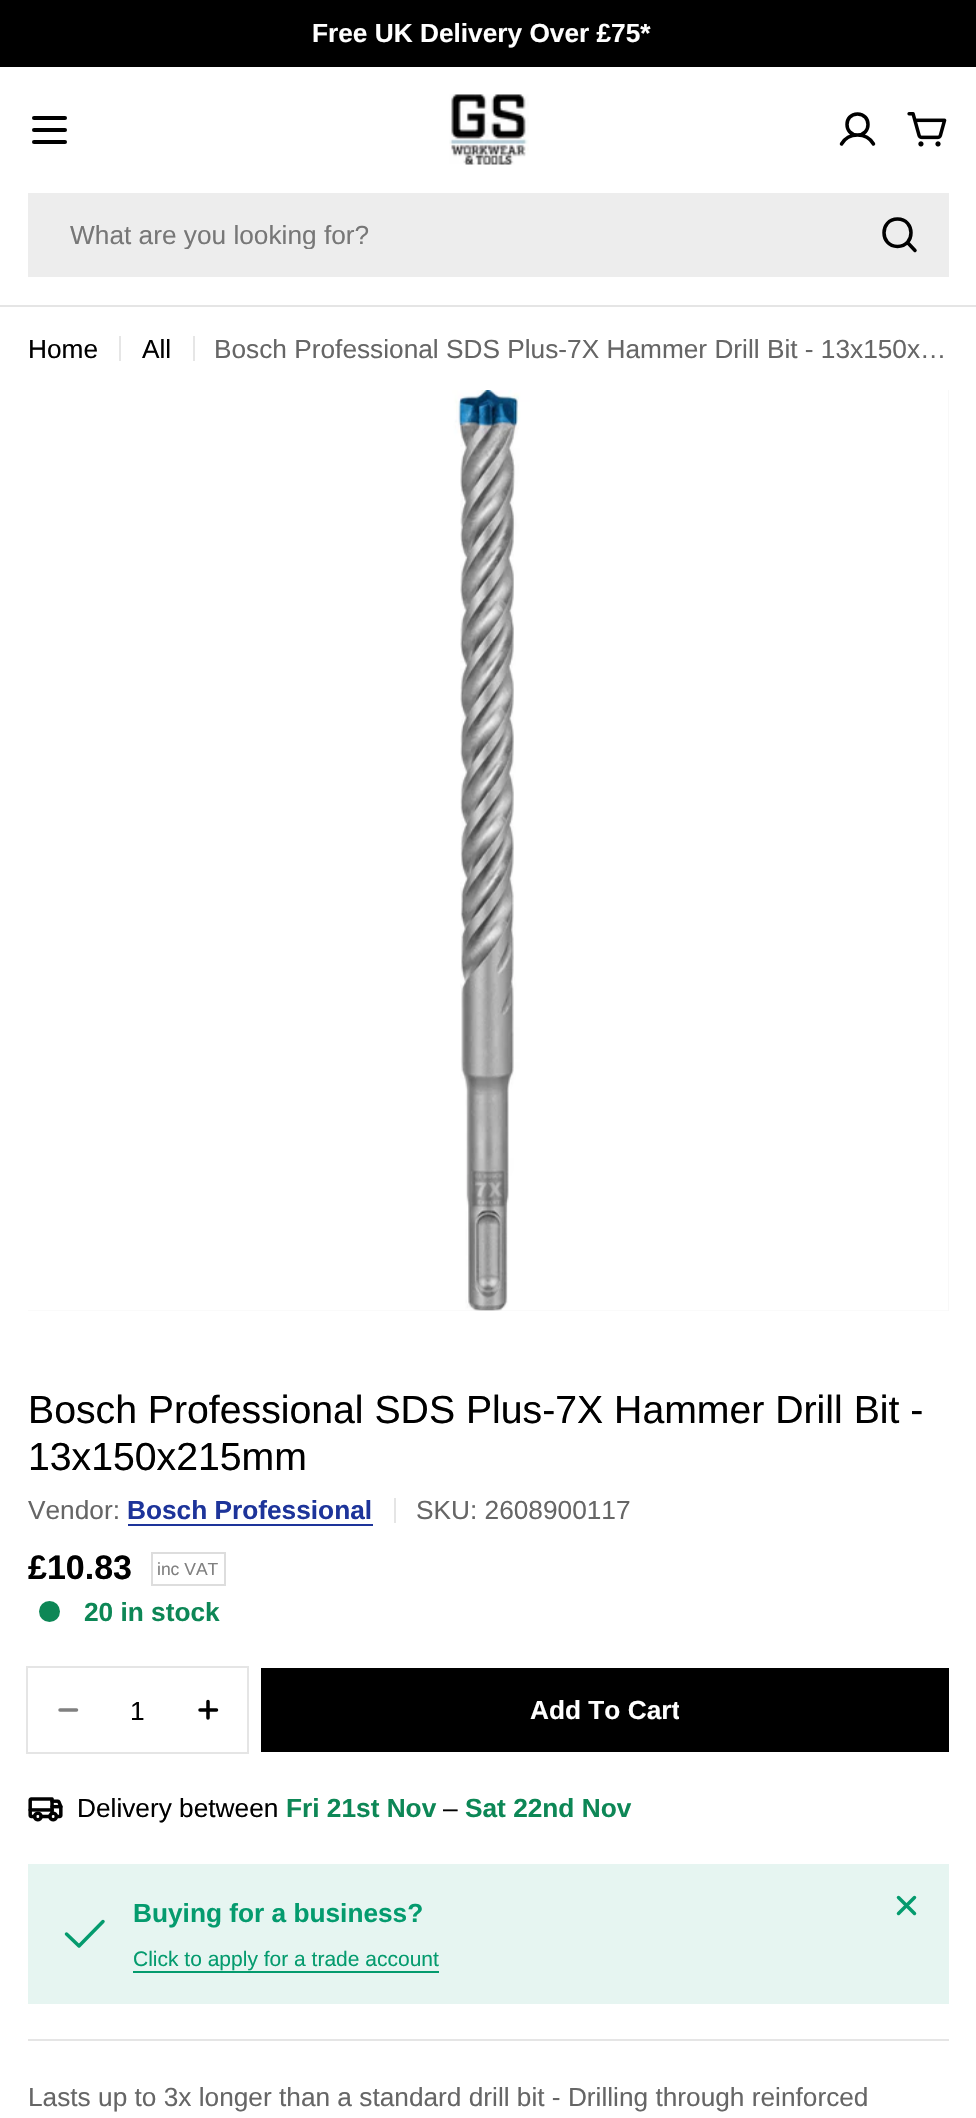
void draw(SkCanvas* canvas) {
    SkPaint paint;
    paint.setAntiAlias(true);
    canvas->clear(0xFFFFFFFF);
    paint.setColor(0xFF000000);
    canvas->drawRect(SkRect::MakeXYWH(0, 0, 976, 67), paint);
    SkFont font1(fontMgr->matchFamilyStyle("Liberation Sans", SkFontStyle::Bold()), 26.25f);
    font1.setSubpixel(true);
    paint.setColor(0xFFFFFFFF);
    canvas->drawString("Free UK Delivery Over £75*", 312, 42, font1, paint);
    paint.setColor(0xFF000000);
    canvas->drawRoundRect(SkRect::MakeXYWH(32, 128, 35, 4), 2, 2, paint);
    canvas->drawRoundRect(SkRect::MakeXYWH(32, 116, 35, 4), 2, 2, paint);
    canvas->drawRoundRect(SkRect::MakeXYWH(32, 140, 35, 4), 2, 2, paint);
    canvas->drawImageRect(SkImages::DeferredFromEncodedData(SkData::MakeFromFileName("img1.png")), SkRect::MakeXYWH(449, 94, 80, 71), SkSamplingOptions());
    paint.setStyle(SkPaint::kStroke_Style);
    paint.setStrokeWidth(3.5f);
    paint.setStrokeCap(SkPaint::kRound_Cap);
    paint.setStrokeJoin(SkPaint::kRound_Join);
    canvas->drawPath(SkPathBuilder().moveTo(857.5f, 135).cubicTo(871.5f, 135, 871.5f, 114, 857.5f, 114).cubicTo(843.5f, 114, 843.5f, 135, 857.5f, 135).close().moveTo(841.5f, 144).cubicTo(848.5f, 132, 866.5f, 132, 873.5f, 144).detach(), paint);
    canvas->drawImageRect(SkImages::DeferredFromEncodedData(SkData::MakeFromFileName("img2.png")), SkRect::MakeXYWH(907, 112, 40, 35), SkSamplingOptions());
    paint.setStyle(SkPaint::kFill_Style);
    paint.setColor(0xFFEDEDED);
    canvas->drawRect(SkRect::MakeXYWH(28, 193, 921, 84), paint);
    canvas->save();
    canvas->clipRect(SkRect::MakeXYWH(70, 219, 784, 30));
    SkFont font2(fontMgr->matchFamilyStyle("Liberation Sans", SkFontStyle::Normal()), 26.25f);
    font2.setSubpixel(true);
    paint.setColor(0xFF777777);
    canvas->drawString("What are you looking for?", 70, 244, font2, paint);
    canvas->restore();
    paint.setStyle(SkPaint::kStroke_Style);
    paint.setColor(0xFF000000);
    canvas->drawPath(SkPathBuilder().moveTo(897.5f, 246.5f).cubicTo(915.5f, 246.5f, 915.5f, 219, 897.5f, 219).cubicTo(879.5f, 219, 879.5f, 246.5f, 897.5f, 246.5f).close().moveTo(907.5f, 242.5f).lineTo(915, 250.5f).detach(), paint);
    paint.setStyle(SkPaint::kFill_Style);
    paint.setColor(0xFFE5E5E5);
    canvas->drawRect(SkRect::MakeXYWH(0, 305, 976, 2), paint);
    paint.setColor(0xFF000000);
    canvas->drawString("Home", 28, 358, font2, paint);
    paint.setColor(0xFFE6E6E6);
    canvas->drawRect(SkRect::MakeXYWH(119, 336, 2, 25), paint);
    paint.setColor(0xFF000000);
    canvas->drawString("All", 142, 358, font2, paint);
    paint.setColor(0xFFE6E6E6);
    canvas->drawRect(SkRect::MakeXYWH(193, 336, 2, 25), paint);
    paint.setColor(0xFF666666);
    canvas->drawString("Bosch Professional SDS Plus-7X Hammer Drill Bit - 13x150x…", 214, 358, font2, paint);
    paint.setColor(0xFFF8F8F8);
    canvas->drawRect(SkRect::MakeXYWH(28, 390, 921, 921), paint);
    canvas->drawImageRect(SkImages::DeferredFromEncodedData(SkData::MakeFromFileName("img3.png")), SkRect::MakeXYWH(28, 390, 920, 921), SkSamplingOptions());
    SkFont font3(fontMgr->matchFamilyStyle("Liberation Sans", SkFontStyle::Normal()), 39.2f);
    font3.setSubpixel(true);
    paint.setColor(0xFF000000);
    canvas->drawString("Bosch Professional SDS Plus-7X Hammer Drill Bit -", 28, 1423, font3, paint);
    canvas->drawString("13x150x215mm", 28, 1470, font3, paint);
    paint.setColor(0xFF666666);
    canvas->drawString("Vendor:", 28, 1519, font2, paint);
    paint.setColor(0xFF1D349A);
    canvas->drawString("Bosch Professional", 127, 1519, font1, paint);
    canvas->drawRect(SkRect::MakeXYWH(128, 1524, 245, 2), paint);
    paint.setColor(0xFFE5E5E5);
    canvas->drawRect(SkRect::MakeXYWH(394, 1498, 2, 25), paint);
    paint.setColor(0xFF666666);
    canvas->drawString("SKU: 2608900117", 416, 1519, font2, paint);
    SkFont font4(fontMgr->matchFamilyStyle("Liberation Sans", SkFontStyle::Bold()), 34);
    font4.setSubpixel(true);
    paint.setColor(0xFF000000);
    canvas->drawString("£10.83", 28, 1579, font4, paint);
    paint.setStyle(SkPaint::kStroke_Style);
    paint.setStrokeWidth(2);
    paint.setStrokeCap(SkPaint::kButt_Cap);
    paint.setStrokeJoin(SkPaint::kMiter_Join);
    paint.setColor(0xFFDDDDDD);
    canvas->drawRect(SkRect::MakeXYWH(152, 1553, 73, 32), paint);
    SkFont font5(fontMgr->matchFamilyStyle("Liberation Sans", SkFontStyle::Normal()), 17.5f);
    font5.setSubpixel(true);
    paint.setStyle(SkPaint::kFill_Style);
    paint.setColor(0xFF808080);
    canvas->drawString("inc VAT", 157, 1575, font5, paint);
    paint.setColor(0xFF0D8756);
    canvas->drawCircle(49.5f, 1611.5f, 10.5f, paint);
    canvas->drawString("20 in stock", 84, 1621, font1, paint);
    paint.setStyle(SkPaint::kStroke_Style);
    paint.setColor(0xFFE5E5E5);
    canvas->drawRect(SkRect::MakeXYWH(27, 1667, 221, 86), paint);
    paint.setStrokeWidth(3.5f);
    paint.setStrokeCap(SkPaint::kRound_Cap);
    paint.setStrokeJoin(SkPaint::kRound_Join);
    paint.setColor(0xFF808080);
    canvas->drawPath(SkPathBuilder().moveTo(60, 1710).lineTo(76.5f, 1710).detach(), paint);
    paint.setStyle(SkPaint::kFill_Style);
    paint.setColor(0xFF000000);
    canvas->drawString("1", 130, 1720, font2, paint);
    paint.setStyle(SkPaint::kStroke_Style);
    canvas->drawPath(SkPathBuilder().moveTo(200, 1710).lineTo(216.5f, 1710).moveTo(208, 1701.5f).lineTo(208, 1718).detach(), paint);
    paint.setStyle(SkPaint::kFill_Style);
    canvas->drawRect(SkRect::MakeXYWH(261, 1668, 688, 84), paint);
    canvas->save();
    canvas->clipRect(SkRect::MakeXYWH(530, 1684, 149, 52));
    paint.setColor(0xFFFFFFFF);
    canvas->drawString("Add To Cart", 530, 1719, font1, paint);
    canvas->restore();
    canvas->drawImageRect(SkImages::DeferredFromEncodedData(SkData::MakeFromFileName("img4.png")), SkRect::MakeXYWH(28, 1797, 35, 25), SkSamplingOptions());
    paint.setColor(0xFF000000);
    canvas->drawString("Delivery between", 77, 1817, font2, paint);
    paint.setColor(0xFF0D8756);
    canvas->drawString("Fri 21st Nov", 286, 1817, font1, paint);
    paint.setColor(0xFF000000);
    canvas->drawString("–", 443, 1817, font2, paint);
    paint.setColor(0xFF0D8756);
    canvas->drawString("Sat 22nd Nov", 465, 1817, font1, paint);
    paint.setColor(0xFFE6F5F1);
    canvas->drawRect(SkRect::MakeXYWH(28, 1864, 921, 140), paint);
    paint.setStyle(SkPaint::kStroke_Style);
    paint.setColor(0xFF049B6E);
    canvas->drawPath(SkPathBuilder().moveTo(103, 1921.5f).lineTo(79, 1946).lineTo(66.5f, 1934).detach(), paint);
    paint.setStyle(SkPaint::kFill_Style);
    canvas->drawString("Buying for a business?", 133, 1922, font1, paint);
    SkFont font6(fontMgr->matchFamilyStyle("Liberation Sans", SkFontStyle::Normal()), 21);
    font6.setSubpixel(true);
    canvas->drawString("Click to apply for a trade account", 133, 1966, font6, paint);
    canvas->drawRect(SkRect::MakeXYWH(133, 1971, 306, 2), paint);
    paint.setStyle(SkPaint::kStroke_Style);
    canvas->drawPath(SkPathBuilder().moveTo(914.5f, 1897.5f).lineTo(898.5f, 1913.5f).moveTo(914.5f, 1913.5f).lineTo(898.5f, 1897.5f).detach(), paint);
    paint.setStyle(SkPaint::kFill_Style);
    paint.setColor(0xFFE5E5E5);
    canvas->drawRect(SkRect::MakeXYWH(28, 2039, 921, 2), paint);
    paint.setColor(0xFF666666);
    canvas->drawString("Lasts up to 3x longer than a standard drill bit - Drilling through reinforced", 28, 2106, font2, paint);
}
